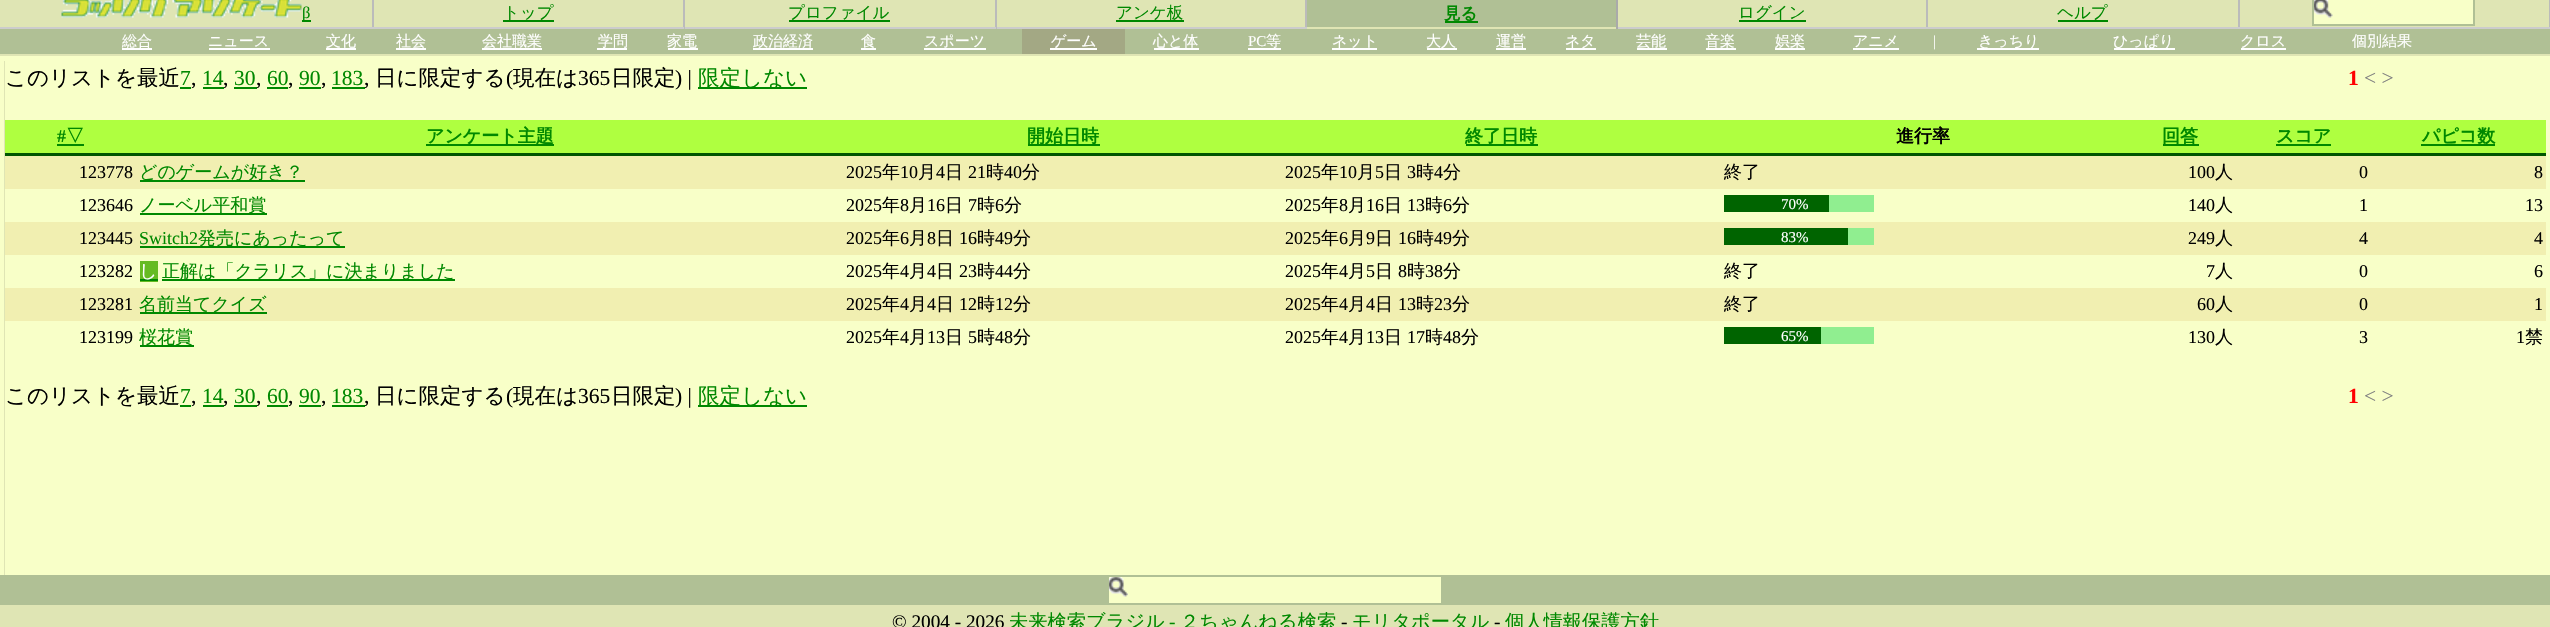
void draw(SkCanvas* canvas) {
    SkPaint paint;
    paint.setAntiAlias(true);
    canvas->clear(0xFFDFE5B4);
    paint.setColor(0xFFBBBBBB);
    canvas->drawRect(SkRect::MakeXYWH(1305, 0, 2, 29), paint);
    paint.setColor(0xFFCCCCCC);
    canvas->drawRect(SkRect::MakeXYWH(995, 27, 312, 2), paint);
    paint.setColor(0xFFBBBBBB);
    canvas->drawRect(SkRect::MakeXYWH(995, 0, 2, 29), paint);
    paint.setColor(0xFFCCCCCC);
    canvas->drawRect(SkRect::MakeXYWH(683, 27, 313, 2), paint);
    paint.setColor(0xFFBBBBBB);
    canvas->drawRect(SkRect::MakeXYWH(683, 0, 2, 29), paint);
    paint.setColor(0xFFCCCCCC);
    canvas->drawRect(SkRect::MakeXYWH(372, 27, 312, 2), paint);
    paint.setColor(0xFFBBBBBB);
    canvas->drawRect(SkRect::MakeXYWH(372, 0, 2, 29), paint);
    paint.setColor(0xFFCCCCCC);
    canvas->drawRect(SkRect::MakeXYWH(0, 27, 374, 2), paint);
    canvas->drawImageRect(SkImages::DeferredFromEncodedData(SkData::MakeFromFileName("img1.png")), SkRect::MakeXYWH(61, 0, 241, 18), SkSamplingOptions());
    paint.setColor(0xFF008800);
    canvas->drawRect(SkRect::MakeXYWH(302, 20, 9, 2), paint);
    SkFont font1(fontMgr->matchFamilyStyle("Liberation Serif", SkFontStyle::Normal()), 16.5f);
    font1.setSubpixel(true);
    canvas->drawString("β", 302, 18, font1, paint);
    canvas->drawRect(SkRect::MakeXYWH(503, 20, 51, 2), paint);
    SkFont font2(fontMgr->matchFamilyStyle("WenQuanYi Zen Hei", SkFontStyle(500, SkFontStyle::kNormal_Width, SkFontStyle::kUpright_Slant)), 16.5f);
    font2.setSubpixel(true);
    canvas->drawString("トップ", 503, 18, font2, paint);
    canvas->drawRect(SkRect::MakeXYWH(789, 20, 101, 2), paint);
    canvas->drawString("プロファイル", 788, 18, font2, paint);
    canvas->drawRect(SkRect::MakeXYWH(1116, 20, 68, 2), paint);
    canvas->drawString("アンケ板", 1116, 18, font2, paint);
    paint.setColor(0xFFB0C095);
    canvas->drawRect(SkRect::MakeXYWH(1307, 0, 309, 27), paint);
    paint.setColor(0xFFBBBBBB);
    canvas->drawRect(SkRect::MakeXYWH(2549, 0, 1, 29), paint);
    paint.setColor(0xFFCCCCCC);
    canvas->drawRect(SkRect::MakeXYWH(2238, 27, 312, 2), paint);
    paint.setColor(0xFFBBBBBB);
    canvas->drawRect(SkRect::MakeXYWH(2238, 0, 2, 29), paint);
    paint.setColor(0xFFCCCCCC);
    canvas->drawRect(SkRect::MakeXYWH(1926, 27, 314, 2), paint);
    paint.setColor(0xFFBBBBBB);
    canvas->drawRect(SkRect::MakeXYWH(1926, 0, 2, 29), paint);
    paint.setColor(0xFFCCCCCC);
    canvas->drawRect(SkRect::MakeXYWH(1616, 27, 312, 2), paint);
    paint.setColor(0xFFAAAAAA);
    canvas->drawRect(SkRect::MakeXYWH(1616, 0, 2, 29), paint);
    paint.setColor(0xFF008800);
    canvas->drawRect(SkRect::MakeXYWH(1445, 21, 33, 2), paint);
    SkFont font3(fontMgr->matchFamilyStyle("WenQuanYi Zen Hei", SkFontStyle::Bold()), 16.5f);
    font3.setSubpixel(true);
    canvas->drawString("見る", 1444, 19, font3, paint);
    canvas->drawRect(SkRect::MakeXYWH(1739, 20, 67, 2), paint);
    canvas->drawString("ログイン", 1738, 18, font2, paint);
    canvas->drawString("ヘルプ", 2057, 18, font2, paint);
    canvas->drawRect(SkRect::MakeXYWH(2058, 20, 50, 2), paint);
    paint.setColor(0xFFF8FFC8);
    canvas->drawRect(SkRect::MakeXYWH(2314, 0, 159, 24), paint);
    canvas->drawImageRect(SkImages::DeferredFromEncodedData(SkData::MakeFromFileName("img2.png")), SkRect::MakeXYWH(2314, 0, 19, 18), SkSamplingOptions());
    paint.setStyle(SkPaint::kStroke_Style);
    paint.setStrokeWidth(2);
    paint.setColor(0xFFB0C095);
    canvas->drawRect(SkRect::MakeXYWH(2313, -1, 161, 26), paint);
    paint.setStyle(SkPaint::kFill_Style);
    canvas->drawRect(SkRect::MakeXYWH(0, 29, 2550, 25), paint);
    paint.setColor(0xFFFFFFFF);
    canvas->drawRect(SkRect::MakeXYWH(122, 48, 30, 2), paint);
    SkFont font4(fontMgr->matchFamilyStyle("WenQuanYi Zen Hei", SkFontStyle(500, SkFontStyle::kNormal_Width, SkFontStyle::kUpright_Slant)), 15);
    font4.setSubpixel(true);
    canvas->drawString("総合", 122, 46, font4, paint);
    canvas->drawString("ニュース", 208, 46, font4, paint);
    canvas->drawRect(SkRect::MakeXYWH(209, 48, 61, 2), paint);
    canvas->drawString("文化", 326, 46, font4, paint);
    canvas->drawRect(SkRect::MakeXYWH(326, 48, 30, 2), paint);
    canvas->drawRect(SkRect::MakeXYWH(396, 48, 30, 2), paint);
    canvas->drawString("社会", 396, 46, font4, paint);
    canvas->drawRect(SkRect::MakeXYWH(482, 48, 60, 2), paint);
    canvas->drawString("会社職業", 482, 46, font4, paint);
    canvas->drawString("学問", 598, 46, font4, paint);
    canvas->drawRect(SkRect::MakeXYWH(597, 48, 30, 2), paint);
    canvas->drawRect(SkRect::MakeXYWH(668, 48, 30, 2), paint);
    canvas->drawString("家電", 667, 46, font4, paint);
    canvas->drawRect(SkRect::MakeXYWH(753, 48, 60, 2), paint);
    canvas->drawString("政治経済", 753, 46, font4, paint);
    canvas->drawString("食", 861, 46, font4, paint);
    canvas->drawRect(SkRect::MakeXYWH(861, 48, 15, 2), paint);
    canvas->drawString("スポーツ", 924, 46, font4, paint);
    canvas->drawRect(SkRect::MakeXYWH(924, 48, 62, 2), paint);
    paint.setColor(0xFFA3A884);
    canvas->drawRect(SkRect::MakeXYWH(1022, 29, 103, 25), paint);
    paint.setColor(0xFFFFFFFF);
    canvas->drawString("ゲーム", 1051, 46, font4, paint);
    canvas->drawRect(SkRect::MakeXYWH(1050, 48, 47, 2), paint);
    canvas->drawString("心と体", 1153, 46, font4, paint);
    canvas->drawRect(SkRect::MakeXYWH(1154, 48, 45, 2), paint);
    SkFont font5(fontMgr->matchFamilyStyle("Liberation Serif", SkFontStyle::Normal()), 15);
    font5.setSubpixel(true);
    canvas->drawString("PC", 1248, 46, font5, paint);
    canvas->drawRect(SkRect::MakeXYWH(1248, 48, 33, 2), paint);
    canvas->drawString("等", 1266, 46, font4, paint);
    canvas->drawString("ネット", 1332, 46, font4, paint);
    canvas->drawRect(SkRect::MakeXYWH(1332, 48, 45, 2), paint);
    canvas->drawRect(SkRect::MakeXYWH(1427, 48, 30, 2), paint);
    canvas->drawString("大人", 1426, 46, font4, paint);
    canvas->drawRect(SkRect::MakeXYWH(1496, 48, 30, 2), paint);
    canvas->drawString("運営", 1496, 46, font4, paint);
    canvas->drawRect(SkRect::MakeXYWH(1566, 48, 30, 2), paint);
    canvas->drawString("ネタ", 1565, 46, font4, paint);
    canvas->drawRect(SkRect::MakeXYWH(1637, 48, 30, 2), paint);
    canvas->drawString("芸能", 1636, 46, font4, paint);
    canvas->drawRect(SkRect::MakeXYWH(1706, 48, 30, 2), paint);
    canvas->drawString("音楽", 1705, 46, font4, paint);
    canvas->drawRect(SkRect::MakeXYWH(1775, 48, 30, 2), paint);
    canvas->drawString("娯楽", 1775, 46, font4, paint);
    canvas->drawString("アニメ", 1853, 46, font4, paint);
    canvas->drawRect(SkRect::MakeXYWH(1853, 48, 46, 2), paint);
    canvas->drawString("|", 1933, 46, font5, paint);
    canvas->drawRect(SkRect::MakeXYWH(1977, 48, 62, 2), paint);
    canvas->drawString("きっちり", 1978, 46, font4, paint);
    canvas->drawRect(SkRect::MakeXYWH(2114, 48, 61, 2), paint);
    canvas->drawString("ひっぱり", 2113, 46, font4, paint);
    canvas->drawString("クロス", 2240, 46, font4, paint);
    canvas->drawRect(SkRect::MakeXYWH(2241, 48, 45, 2), paint);
    canvas->drawString("個別結果", 2352, 46, font4, paint);
    paint.setColor(0xFFF8FFC8);
    canvas->drawRect(SkRect::MakeXYWH(5, 61, 2541, 514), paint);
    canvas->drawRect(SkRect::MakeXYWH(0, 56, 2550, 5), paint);
    canvas->drawPath(SkPathBuilder().moveTo(2550, 56).lineTo(2550, 602).lineTo(2546, 600).lineTo(2546, 60).close().detach(), paint);
    canvas->drawPath(SkPathBuilder().moveTo(0, 602).lineTo(0, 56).lineTo(4, 60).lineTo(4, 600).close().detach(), paint);
    SkFont font6(fontMgr->matchFamilyStyle("WenQuanYi Zen Hei", SkFontStyle(500, SkFontStyle::kNormal_Width, SkFontStyle::kUpright_Slant)), 21.5f);
    font6.setSubpixel(true);
    paint.setColor(0xFF000000);
    canvas->drawString("このリストを最近", 5, 85, font6, paint);
    SkFont font7(fontMgr->matchFamilyStyle("Liberation Serif", SkFontStyle::Normal()), 21.5f);
    font7.setSubpixel(true);
    paint.setColor(0xFF008800);
    canvas->drawString("7", 180, 85, font7, paint);
    paint.setColor(0xFF000000);
    canvas->drawString(",", 191, 85, font7, paint);
    paint.setColor(0xFF008800);
    canvas->drawRect(SkRect::MakeXYWH(180, 87, 11, 2), paint);
    canvas->drawString("14", 202, 85, font7, paint);
    paint.setColor(0xFF000000);
    canvas->drawString(",", 223, 85, font7, paint);
    paint.setColor(0xFF008800);
    canvas->drawRect(SkRect::MakeXYWH(203, 87, 21, 2), paint);
    canvas->drawString("30", 234, 85, font7, paint);
    canvas->drawRect(SkRect::MakeXYWH(234, 87, 23, 2), paint);
    paint.setColor(0xFF000000);
    canvas->drawString(",", 256, 85, font7, paint);
    paint.setColor(0xFF008800);
    canvas->drawString("60", 267, 85, font7, paint);
    paint.setColor(0xFF000000);
    canvas->drawString(",", 288, 85, font7, paint);
    paint.setColor(0xFF008800);
    canvas->drawRect(SkRect::MakeXYWH(267, 87, 21, 2), paint);
    canvas->drawString("90", 299, 85, font7, paint);
    paint.setColor(0xFF000000);
    canvas->drawString(",", 321, 85, font7, paint);
    paint.setColor(0xFF008800);
    canvas->drawRect(SkRect::MakeXYWH(299, 87, 22, 2), paint);
    canvas->drawString("183", 331, 85, font7, paint);
    canvas->drawRect(SkRect::MakeXYWH(332, 87, 33, 2), paint);
    paint.setColor(0xFF000000);
    canvas->drawString(",", 364, 85, font7, paint);
    canvas->drawString("日に限定する", 375, 85, font6, paint);
    canvas->drawString("(", 506, 85, font7, paint);
    canvas->drawString("現在は", 513, 85, font6, paint);
    canvas->drawString("365", 578, 85, font7, paint);
    canvas->drawString("日限定", 611, 85, font6, paint);
    canvas->drawString(") |", 675, 85, font7, paint);
    paint.setColor(0xFF008800);
    canvas->drawRect(SkRect::MakeXYWH(698, 87, 109, 2), paint);
    canvas->drawString("限定しない", 698, 85, font6, paint);
    SkFont font8(fontMgr->matchFamilyStyle("Liberation Serif", SkFontStyle::Bold()), 21.5f);
    font8.setSubpixel(true);
    paint.setColor(0xFFFF0000);
    canvas->drawString("1", 2348, 85, font8, paint);
    paint.setColor(0xFF808080);
    canvas->drawString("< >", 2364, 85, font7, paint);
    paint.setColor(0xFFAFFF40);
    canvas->drawRect(SkRect::MakeXYWH(5, 120, 2541, 33), paint);
    paint.setColor(0xFF005500);
    canvas->drawRect(SkRect::MakeXYWH(5, 153, 2541, 3), paint);
    SkFont font9(fontMgr->matchFamilyStyle("Liberation Serif", SkFontStyle::Bold()), 18);
    font9.setSubpixel(true);
    paint.setColor(0xFF008800);
    canvas->drawString("#", 57, 142, font9, paint);
    canvas->drawRect(SkRect::MakeXYWH(57, 144, 27, 2), paint);
    SkFont font10(fontMgr->matchFamilyStyle("WenQuanYi Zen Hei", SkFontStyle::Bold()), 18);
    font10.setSubpixel(true);
    canvas->drawString("▽", 66, 142, font10, paint);
    canvas->drawRect(SkRect::MakeXYWH(426, 144, 128, 2), paint);
    canvas->drawString("アンケート主題", 426, 142, font10, paint);
    canvas->drawRect(SkRect::MakeXYWH(1028, 144, 72, 2), paint);
    canvas->drawString("開始日時", 1027, 142, font10, paint);
    canvas->drawRect(SkRect::MakeXYWH(1466, 144, 72, 2), paint);
    canvas->drawString("終了日時", 1465, 142, font10, paint);
    paint.setColor(0xFF000000);
    canvas->drawString("進行率", 1896, 142, font10, paint);
    paint.setColor(0xFF008800);
    canvas->drawRect(SkRect::MakeXYWH(2163, 144, 36, 2), paint);
    canvas->drawString("回答", 2162, 142, font10, paint);
    canvas->drawString("スコア", 2276, 142, font10, paint);
    canvas->drawRect(SkRect::MakeXYWH(2276, 144, 55, 2), paint);
    canvas->drawRect(SkRect::MakeXYWH(2421, 144, 74, 2), paint);
    canvas->drawString("パピコ数", 2422, 142, font10, paint);
    paint.setColor(0xFFF1EFB1);
    canvas->drawRect(SkRect::MakeXYWH(5, 156, 2541, 33), paint);
    SkFont font11(fontMgr->matchFamilyStyle("Liberation Serif", SkFontStyle::Normal()), 18);
    font11.setSubpixel(true);
    paint.setColor(0xFF000000);
    canvas->drawString("123778", 79, 178, font11, paint);
    paint.setColor(0xFF008800);
    canvas->drawRect(SkRect::MakeXYWH(140, 180, 165, 2), paint);
    SkFont font12(fontMgr->matchFamilyStyle("WenQuanYi Zen Hei", SkFontStyle(500, SkFontStyle::kNormal_Width, SkFontStyle::kUpright_Slant)), 18);
    font12.setSubpixel(true);
    canvas->drawString("どのゲームが好き？", 139, 178, font12, paint);
    paint.setColor(0xFF000000);
    canvas->drawString("2025", 846, 178, font11, paint);
    canvas->drawString("年", 882, 178, font12, paint);
    canvas->drawString("10", 900, 178, font11, paint);
    canvas->drawString("月", 918, 178, font12, paint);
    canvas->drawString("4", 936, 178, font11, paint);
    canvas->drawString("日", 945, 178, font12, paint);
    canvas->drawString("21", 968, 178, font11, paint);
    canvas->drawString("時", 986, 178, font12, paint);
    canvas->drawString("40", 1004, 178, font11, paint);
    canvas->drawString("分", 1022, 178, font12, paint);
    canvas->drawString("2025", 1285, 178, font11, paint);
    canvas->drawString("年", 1321, 178, font12, paint);
    canvas->drawString("10", 1339, 178, font11, paint);
    canvas->drawString("月", 1357, 178, font12, paint);
    canvas->drawString("5", 1375, 178, font11, paint);
    canvas->drawString("日", 1384, 178, font12, paint);
    canvas->drawString("3", 1407, 178, font11, paint);
    canvas->drawString("時", 1416, 178, font12, paint);
    canvas->drawString("4", 1434, 178, font11, paint);
    canvas->drawString("分", 1443, 178, font12, paint);
    canvas->drawString("終了", 1724, 178, font12, paint);
    canvas->drawString("100", 2188, 178, font11, paint);
    canvas->drawString("人", 2215, 178, font12, paint);
    canvas->drawString("0", 2359, 178, font11, paint);
    canvas->drawString("8", 2534, 178, font11, paint);
    canvas->drawString("123646", 79, 211, font11, paint);
    paint.setColor(0xFF008800);
    canvas->drawRect(SkRect::MakeXYWH(140, 213, 127, 2), paint);
    canvas->drawString("ノーベル平和賞", 139, 211, font12, paint);
    paint.setColor(0xFF000000);
    canvas->drawString("2025", 846, 211, font11, paint);
    canvas->drawString("年", 882, 211, font12, paint);
    canvas->drawString("8", 900, 211, font11, paint);
    canvas->drawString("月", 909, 211, font12, paint);
    canvas->drawString("16", 927, 211, font11, paint);
    canvas->drawString("日", 945, 211, font12, paint);
    canvas->drawString("7", 968, 211, font11, paint);
    canvas->drawString("時", 977, 211, font12, paint);
    canvas->drawString("6", 995, 211, font11, paint);
    canvas->drawString("分", 1004, 211, font12, paint);
    canvas->drawString("2025", 1285, 211, font11, paint);
    canvas->drawString("年", 1321, 211, font12, paint);
    canvas->drawString("8", 1339, 211, font11, paint);
    canvas->drawString("月", 1348, 211, font12, paint);
    canvas->drawString("16", 1366, 211, font11, paint);
    canvas->drawString("日", 1384, 211, font12, paint);
    canvas->drawString("13", 1407, 211, font11, paint);
    canvas->drawString("時", 1425, 211, font12, paint);
    canvas->drawString("6", 1443, 211, font11, paint);
    canvas->drawString("分", 1452, 211, font12, paint);
    paint.setColor(0xFF006400);
    canvas->drawRect(SkRect::MakeXYWH(1724, 195, 105, 17), paint);
    paint.setColor(0xFFFFFFFF);
    canvas->drawString("70%", 1781, 209, font5, paint);
    paint.setColor(0xFF90EE90);
    canvas->drawRect(SkRect::MakeXYWH(1829, 195, 45, 17), paint);
    paint.setColor(0xFF000000);
    canvas->drawString("140", 2188, 211, font11, paint);
    canvas->drawString("人", 2215, 211, font12, paint);
    canvas->drawString("1", 2359, 211, font11, paint);
    canvas->drawString("13", 2525, 211, font11, paint);
    paint.setColor(0xFFF1EFB1);
    canvas->drawRect(SkRect::MakeXYWH(5, 222, 2541, 33), paint);
    paint.setColor(0xFF000000);
    canvas->drawString("123445", 79, 244, font11, paint);
    paint.setColor(0xFF008800);
    canvas->drawString("Switch2", 139, 244, font11, paint);
    canvas->drawRect(SkRect::MakeXYWH(140, 246, 205, 2), paint);
    canvas->drawString("発売にあったって", 198, 244, font12, paint);
    paint.setColor(0xFF000000);
    canvas->drawString("2025", 846, 244, font11, paint);
    canvas->drawString("年", 882, 244, font12, paint);
    canvas->drawString("6", 900, 244, font11, paint);
    canvas->drawString("月", 909, 244, font12, paint);
    canvas->drawString("8", 927, 244, font11, paint);
    canvas->drawString("日", 936, 244, font12, paint);
    canvas->drawString("16", 959, 244, font11, paint);
    canvas->drawString("時", 977, 244, font12, paint);
    canvas->drawString("49", 995, 244, font11, paint);
    canvas->drawString("分", 1013, 244, font12, paint);
    canvas->drawString("2025", 1285, 244, font11, paint);
    canvas->drawString("年", 1321, 244, font12, paint);
    canvas->drawString("6", 1339, 244, font11, paint);
    canvas->drawString("月", 1348, 244, font12, paint);
    canvas->drawString("9", 1366, 244, font11, paint);
    canvas->drawString("日", 1375, 244, font12, paint);
    canvas->drawString("16", 1398, 244, font11, paint);
    canvas->drawString("時", 1416, 244, font12, paint);
    canvas->drawString("49", 1434, 244, font11, paint);
    canvas->drawString("分", 1452, 244, font12, paint);
    paint.setColor(0xFF006400);
    canvas->drawRect(SkRect::MakeXYWH(1724, 228, 124, 17), paint);
    paint.setColor(0xFFFFFFFF);
    canvas->drawString("83%", 1781, 242, font5, paint);
    paint.setColor(0xFF90EE90);
    canvas->drawRect(SkRect::MakeXYWH(1848, 228, 26, 17), paint);
    paint.setColor(0xFF000000);
    canvas->drawString("249", 2188, 244, font11, paint);
    canvas->drawString("人", 2215, 244, font12, paint);
    canvas->drawString("4", 2359, 244, font11, paint);
    canvas->drawString("4", 2534, 244, font11, paint);
    canvas->drawString("123282", 79, 277, font11, paint);
    paint.setColor(0xFF66BB22);
    canvas->drawRect(SkRect::MakeXYWH(140, 261, 18, 21), paint);
    paint.setColor(0xFF008800);
    canvas->drawRect(SkRect::MakeXYWH(140, 279, 18, 2), paint);
    paint.setColor(0xFFFFFFFF);
    canvas->drawString("し", 139, 277, font12, paint);
    paint.setColor(0xFF008800);
    canvas->drawRect(SkRect::MakeXYWH(162, 279, 293, 2), paint);
    canvas->drawString("正解は「クラリス」に決まりました", 162, 277, font12, paint);
    paint.setColor(0xFF000000);
    canvas->drawString("2025", 846, 277, font11, paint);
    canvas->drawString("年", 882, 277, font12, paint);
    canvas->drawString("4", 900, 277, font11, paint);
    canvas->drawString("月", 909, 277, font12, paint);
    canvas->drawString("4", 927, 277, font11, paint);
    canvas->drawString("日", 936, 277, font12, paint);
    canvas->drawString("23", 959, 277, font11, paint);
    canvas->drawString("時", 977, 277, font12, paint);
    canvas->drawString("44", 995, 277, font11, paint);
    canvas->drawString("分", 1013, 277, font12, paint);
    canvas->drawString("2025", 1285, 277, font11, paint);
    canvas->drawString("年", 1321, 277, font12, paint);
    canvas->drawString("4", 1339, 277, font11, paint);
    canvas->drawString("月", 1348, 277, font12, paint);
    canvas->drawString("5", 1366, 277, font11, paint);
    canvas->drawString("日", 1375, 277, font12, paint);
    canvas->drawString("8", 1398, 277, font11, paint);
    canvas->drawString("時", 1407, 277, font12, paint);
    canvas->drawString("38", 1425, 277, font11, paint);
    canvas->drawString("分", 1443, 277, font12, paint);
    canvas->drawString("終了", 1724, 277, font12, paint);
    canvas->drawString("7", 2206, 277, font11, paint);
    canvas->drawString("人", 2215, 277, font12, paint);
    canvas->drawString("0", 2359, 277, font11, paint);
    canvas->drawString("6", 2534, 277, font11, paint);
    paint.setColor(0xFFF1EFB1);
    canvas->drawRect(SkRect::MakeXYWH(5, 288, 2541, 33), paint);
    paint.setColor(0xFF000000);
    canvas->drawString("123281", 79, 310, font11, paint);
    paint.setColor(0xFF008800);
    canvas->drawRect(SkRect::MakeXYWH(140, 312, 127, 2), paint);
    canvas->drawString("名前当てクイズ", 139, 310, font12, paint);
    paint.setColor(0xFF000000);
    canvas->drawString("2025", 846, 310, font11, paint);
    canvas->drawString("年", 882, 310, font12, paint);
    canvas->drawString("4", 900, 310, font11, paint);
    canvas->drawString("月", 909, 310, font12, paint);
    canvas->drawString("4", 927, 310, font11, paint);
    canvas->drawString("日", 936, 310, font12, paint);
    canvas->drawString("12", 959, 310, font11, paint);
    canvas->drawString("時", 977, 310, font12, paint);
    canvas->drawString("12", 995, 310, font11, paint);
    canvas->drawString("分", 1013, 310, font12, paint);
    canvas->drawString("2025", 1285, 310, font11, paint);
    canvas->drawString("年", 1321, 310, font12, paint);
    canvas->drawString("4", 1339, 310, font11, paint);
    canvas->drawString("月", 1348, 310, font12, paint);
    canvas->drawString("4", 1366, 310, font11, paint);
    canvas->drawString("日", 1375, 310, font12, paint);
    canvas->drawString("13", 1398, 310, font11, paint);
    canvas->drawString("時", 1416, 310, font12, paint);
    canvas->drawString("23", 1434, 310, font11, paint);
    canvas->drawString("分", 1452, 310, font12, paint);
    canvas->drawString("終了", 1724, 310, font12, paint);
    canvas->drawString("60", 2197, 310, font11, paint);
    canvas->drawString("人", 2215, 310, font12, paint);
    canvas->drawString("0", 2359, 310, font11, paint);
    canvas->drawString("1", 2534, 310, font11, paint);
    canvas->drawString("123199", 79, 343, font11, paint);
    paint.setColor(0xFF008800);
    canvas->drawRect(SkRect::MakeXYWH(140, 345, 54, 2), paint);
    canvas->drawString("桜花賞", 139, 343, font12, paint);
    paint.setColor(0xFF000000);
    canvas->drawString("2025", 846, 343, font11, paint);
    canvas->drawString("年", 882, 343, font12, paint);
    canvas->drawString("4", 900, 343, font11, paint);
    canvas->drawString("月", 909, 343, font12, paint);
    canvas->drawString("13", 927, 343, font11, paint);
    canvas->drawString("日", 945, 343, font12, paint);
    canvas->drawString("5", 968, 343, font11, paint);
    canvas->drawString("時", 977, 343, font12, paint);
    canvas->drawString("48", 995, 343, font11, paint);
    canvas->drawString("分", 1013, 343, font12, paint);
    canvas->drawString("2025", 1285, 343, font11, paint);
    canvas->drawString("年", 1321, 343, font12, paint);
    canvas->drawString("4", 1339, 343, font11, paint);
    canvas->drawString("月", 1348, 343, font12, paint);
    canvas->drawString("13", 1366, 343, font11, paint);
    canvas->drawString("日", 1384, 343, font12, paint);
    canvas->drawString("17", 1407, 343, font11, paint);
    canvas->drawString("時", 1425, 343, font12, paint);
    canvas->drawString("48", 1443, 343, font11, paint);
    canvas->drawString("分", 1461, 343, font12, paint);
    paint.setColor(0xFF006400);
    canvas->drawRect(SkRect::MakeXYWH(1724, 327, 97, 17), paint);
    paint.setColor(0xFFFFFFFF);
    canvas->drawString("65%", 1781, 341, font5, paint);
    paint.setColor(0xFF90EE90);
    canvas->drawRect(SkRect::MakeXYWH(1821, 327, 53, 17), paint);
    paint.setColor(0xFF000000);
    canvas->drawString("130", 2188, 343, font11, paint);
    canvas->drawString("人", 2215, 343, font12, paint);
    canvas->drawString("3", 2359, 343, font11, paint);
    canvas->drawString("1", 2516, 343, font11, paint);
    canvas->drawString("禁", 2525, 343, font12, paint);
    canvas->drawString("このリストを最近", 5, 403, font6, paint);
    paint.setColor(0xFF008800);
    canvas->drawString("7", 180, 403, font7, paint);
    paint.setColor(0xFF000000);
    canvas->drawString(",", 191, 403, font7, paint);
    paint.setColor(0xFF008800);
    canvas->drawRect(SkRect::MakeXYWH(180, 405, 11, 2), paint);
    canvas->drawString("14", 202, 403, font7, paint);
    paint.setColor(0xFF000000);
    canvas->drawString(",", 223, 403, font7, paint);
    paint.setColor(0xFF008800);
    canvas->drawRect(SkRect::MakeXYWH(203, 405, 21, 2), paint);
    canvas->drawString("30", 234, 403, font7, paint);
    canvas->drawRect(SkRect::MakeXYWH(234, 405, 23, 2), paint);
    paint.setColor(0xFF000000);
    canvas->drawString(",", 256, 403, font7, paint);
    paint.setColor(0xFF008800);
    canvas->drawString("60", 267, 403, font7, paint);
    paint.setColor(0xFF000000);
    canvas->drawString(",", 288, 403, font7, paint);
    paint.setColor(0xFF008800);
    canvas->drawRect(SkRect::MakeXYWH(267, 405, 21, 2), paint);
    canvas->drawString("90", 299, 403, font7, paint);
    paint.setColor(0xFF000000);
    canvas->drawString(",", 321, 403, font7, paint);
    paint.setColor(0xFF008800);
    canvas->drawRect(SkRect::MakeXYWH(299, 405, 22, 2), paint);
    canvas->drawString("183", 331, 403, font7, paint);
    canvas->drawRect(SkRect::MakeXYWH(332, 405, 33, 2), paint);
    paint.setColor(0xFF000000);
    canvas->drawString(",", 364, 403, font7, paint);
    canvas->drawString("日に限定する", 375, 403, font6, paint);
    canvas->drawString("(", 506, 403, font7, paint);
    canvas->drawString("現在は", 513, 403, font6, paint);
    canvas->drawString("365", 578, 403, font7, paint);
    canvas->drawString("日限定", 611, 403, font6, paint);
    canvas->drawString(") |", 675, 403, font7, paint);
    paint.setColor(0xFF008800);
    canvas->drawRect(SkRect::MakeXYWH(698, 405, 109, 2), paint);
    canvas->drawString("限定しない", 698, 403, font6, paint);
    paint.setColor(0xFFFF0000);
    canvas->drawString("1", 2348, 403, font8, paint);
    paint.setColor(0xFF808080);
    canvas->drawString("< >", 2364, 403, font7, paint);
    paint.setColor(0xFFB0C095);
    canvas->drawRect(SkRect::MakeXYWH(0, 575, 2550, 30), paint);
    paint.setColor(0xFFF8FFC8);
    canvas->drawRect(SkRect::MakeXYWH(1109, 577, 332, 26), paint);
    canvas->drawImageRect(SkImages::DeferredFromEncodedData(SkData::MakeFromFileName("img3.png")), SkRect::MakeXYWH(1109, 577, 19, 20), SkSamplingOptions());
    SkFont font13(fontMgr->matchFamilyStyle("Liberation Serif", SkFontStyle::Normal()), 19.25f);
    font13.setSubpixel(true);
    paint.setColor(0xFF000000);
    canvas->drawString("© 2004 - 2026", 892, 628, font13, paint);
    SkFont font14(fontMgr->matchFamilyStyle("WenQuanYi Zen Hei", SkFontStyle(500, SkFontStyle::kNormal_Width, SkFontStyle::kUpright_Slant)), 19.25f);
    font14.setSubpixel(true);
    paint.setColor(0xFF008800);
    canvas->drawString("未来検索ブラジル", 1009, 628, font14, paint);
    canvas->drawString("-", 1169, 628, font13, paint);
    canvas->drawString("２ちゃんねる検索", 1180, 628, font14, paint);
    paint.setColor(0xFF000000);
    canvas->drawString("-", 1341, 628, font13, paint);
    paint.setColor(0xFF008800);
    canvas->drawString("モリタポータル", 1352, 628, font14, paint);
    paint.setColor(0xFF000000);
    canvas->drawString("-", 1494, 628, font13, paint);
    paint.setColor(0xFF008800);
    canvas->drawString("個人情報保護方針", 1505, 628, font14, paint);
}
